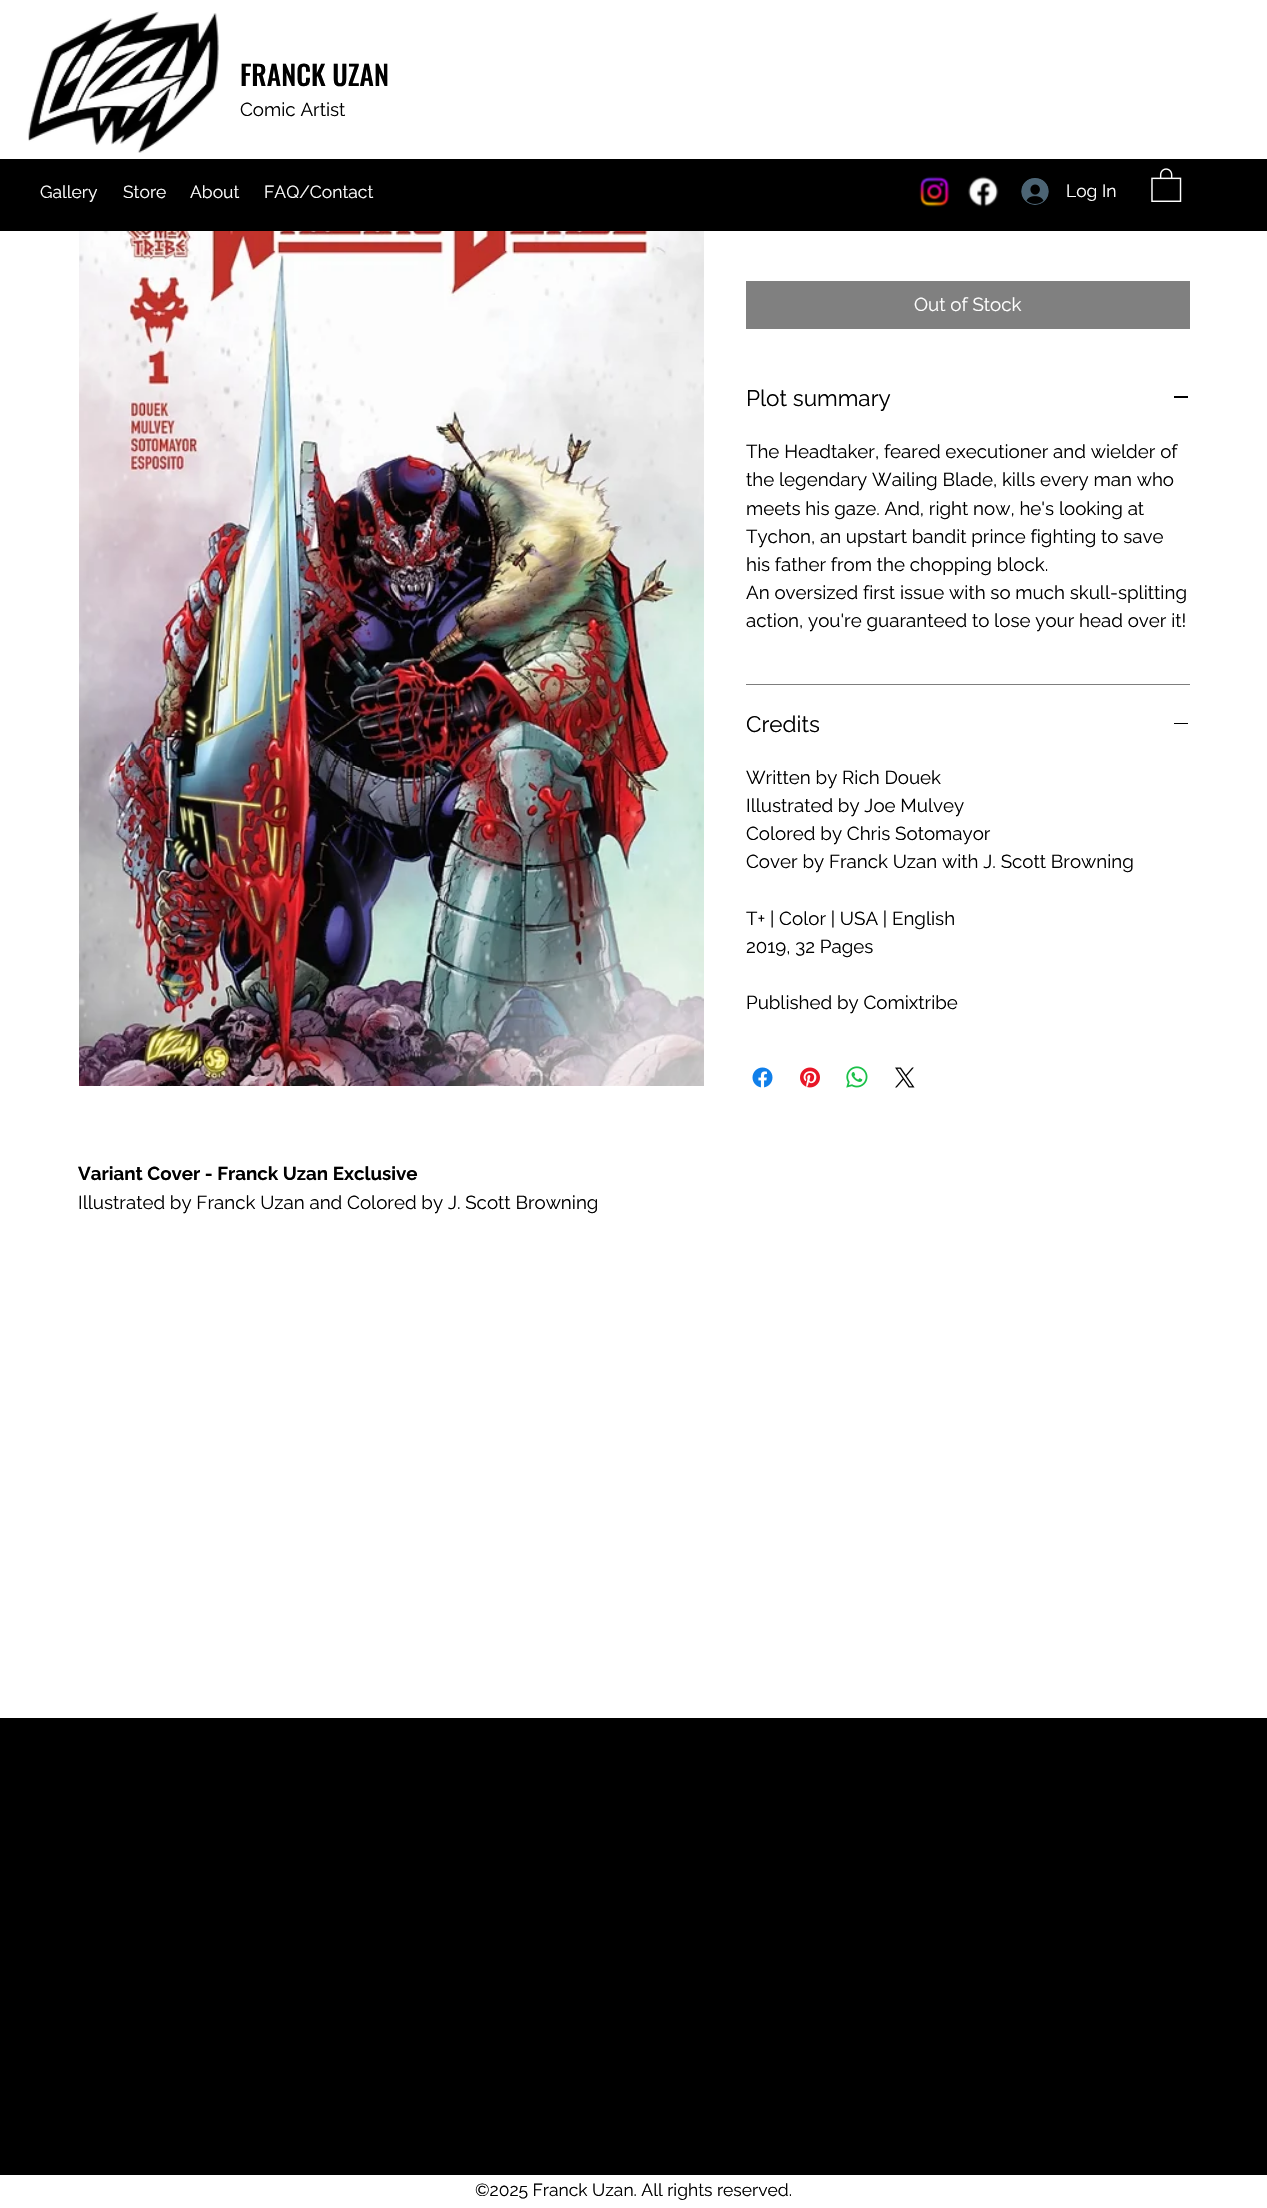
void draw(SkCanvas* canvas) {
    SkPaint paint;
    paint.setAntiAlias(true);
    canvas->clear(0xFFFFFFFF);
    canvas->drawImageRect(SkImages::DeferredFromEncodedData(SkData::MakeFromFileName("img1.png")), SkRect::MakeXYWH(28, 11, 191, 142), SkSamplingOptions());
    SkFont font1(fontMgr->matchFamilyStyle("Oswald", SkFontStyle(500, SkFontStyle::kNormal_Width, SkFontStyle::kUpright_Slant)), 27.5f);
    font1.setSubpixel(true);
    paint.setColor(0xFF000000);
    canvas->drawString("FRANCK UZAN", 240, 86, font1, paint);
    SkFont font2(fontMgr->matchFamilyStyle("Raleway", SkFontStyle::Normal()), 18.75f);
    font2.setSubpixel(true);
    canvas->drawString("Comic Artist", 240, 116, font2, paint);
    canvas->drawRect(SkRect::MakeXYWH(0, 159, 1267, 72), paint);
    SkFont font3(fontMgr->matchFamilyStyle("Raleway", SkFontStyle::Normal()), 17.5f);
    font3.setSubpixel(true);
    paint.setColor(0xFFFFFFFF);
    canvas->drawString("Gallery", 40, 198, font3, paint);
    canvas->drawString("Store", 123, 198, font3, paint);
    canvas->drawString("About", 190, 198, font3, paint);
    canvas->drawString("FAQ/Contact", 264, 198, font3, paint);
    canvas->drawImageRect(SkImages::DeferredFromEncodedData(SkData::MakeFromFileName("img2.png")), SkRect::MakeXYWH(919, 176, 31, 31), SkSamplingOptions());
    canvas->drawImageRect(SkImages::DeferredFromEncodedData(SkData::MakeFromFileName("img3.png")), SkRect::MakeXYWH(968, 176, 31, 31), SkSamplingOptions());
    canvas->drawImageRect(SkImages::DeferredFromEncodedData(SkData::MakeFromFileName("img4.png")), SkRect::MakeXYWH(1021, 178, 28, 27), SkSamplingOptions());
    canvas->drawString("Log In", 1066, 197, font3, paint);
    canvas->drawImageRect(SkImages::DeferredFromEncodedData(SkData::MakeFromFileName("img5.png")), SkRect::MakeXYWH(1151, 168, 31, 34), SkSamplingOptions());
    paint.setColor(0xFF808080);
    canvas->drawRect(SkRect::MakeXYWH(746, 281, 444, 48), paint);
    paint.setColor(0xFFFFFFFF);
    canvas->drawString("Out of Stock", 914, 311, font2, paint);
    paint.setColor(0xFF7D7D7D);
    canvas->drawRect(SkRect::MakeXYWH(746, 684, 444, 1), paint);
    SkFont font4(fontMgr->matchFamilyStyle("Raleway", SkFontStyle::Normal()), 22.5f);
    font4.setSubpixel(true);
    paint.setColor(0xFF000000);
    canvas->drawString("Plot summary", 746, 406, font4, paint);
    canvas->drawRect(SkRect::MakeXYWH(1174, 396, 14, 2), paint);
    canvas->drawString("The Headtaker, feared executioner and wielder of", 746, 458, font2, paint);
    canvas->drawString("the legendary Wailing Blade, kills every man who", 746, 486, font2, paint);
    canvas->drawString("meets his gaze. And, right now, he's looking at", 746, 515, font2, paint);
    canvas->drawString("Tychon, an upstart bandit prince fighting to save", 746, 543, font2, paint);
    canvas->drawString("his father from the chopping block.", 746, 571, font2, paint);
    canvas->drawString("An oversized first issue with so much skull-splitting", 746, 599, font2, paint);
    canvas->drawString("action, you're guaranteed to lose your head over it!", 746, 627, font2, paint);
    canvas->drawString("Credits", 746, 732, font4, paint);
    canvas->drawRect(SkRect::MakeXYWH(1174, 723, 14, 1), paint);
    canvas->drawString("Written by Rich Douek", 746, 784, font2, paint);
    canvas->drawString("Illustrated by Joe Mulvey", 746, 812, font2, paint);
    canvas->drawString("Colored by Chris Sotomayor", 746, 840, font2, paint);
    canvas->drawString("Cover by Franck Uzan with J. Scott Browning", 746, 868, font2, paint);
    canvas->drawString("T+ | Color | USA | English", 746, 925, font2, paint);
    canvas->drawString("2019, 32 Pages", 746, 953, font2, paint);
    canvas->drawString("Published by Comixtribe", 746, 1009, font2, paint);
    canvas->drawImageRect(SkImages::DeferredFromEncodedData(SkData::MakeFromFileName("img6.png")), SkRect::MakeXYWH(752, 1067, 21, 21), SkSamplingOptions());
    canvas->drawImageRect(SkImages::DeferredFromEncodedData(SkData::MakeFromFileName("img7.png")), SkRect::MakeXYWH(800, 1067, 20, 21), SkSamplingOptions());
    canvas->drawImageRect(SkImages::DeferredFromEncodedData(SkData::MakeFromFileName("img8.png")), SkRect::MakeXYWH(846, 1066, 22, 22), SkSamplingOptions());
    canvas->drawImageRect(SkImages::DeferredFromEncodedData(SkData::MakeFromFileName("img9.png")), SkRect::MakeXYWH(895, 1067, 20, 21), SkSamplingOptions());
    canvas->drawImageRect(SkImages::DeferredFromEncodedData(SkData::MakeFromFileName("img10.png")), SkRect::MakeXYWH(79, 231, 625, 855), SkSamplingOptions());
    SkFont font5(fontMgr->matchFamilyStyle("Raleway", SkFontStyle::Bold()), 18.75f);
    font5.setSubpixel(true);
    canvas->drawString("Variant Cover - Franck Uzan Exclusive", 78, 1180, font5, paint);
    canvas->drawString("Illustrated by Franck Uzan and Colored by J. Scott Browning", 78, 1209, font2, paint);
    canvas->drawRect(SkRect::MakeXYWH(0, 1718, 1267, 457), paint);
    canvas->drawString("©2025 Franck Uzan. All rights reserved.", 475, 2196, font3, paint);
}
